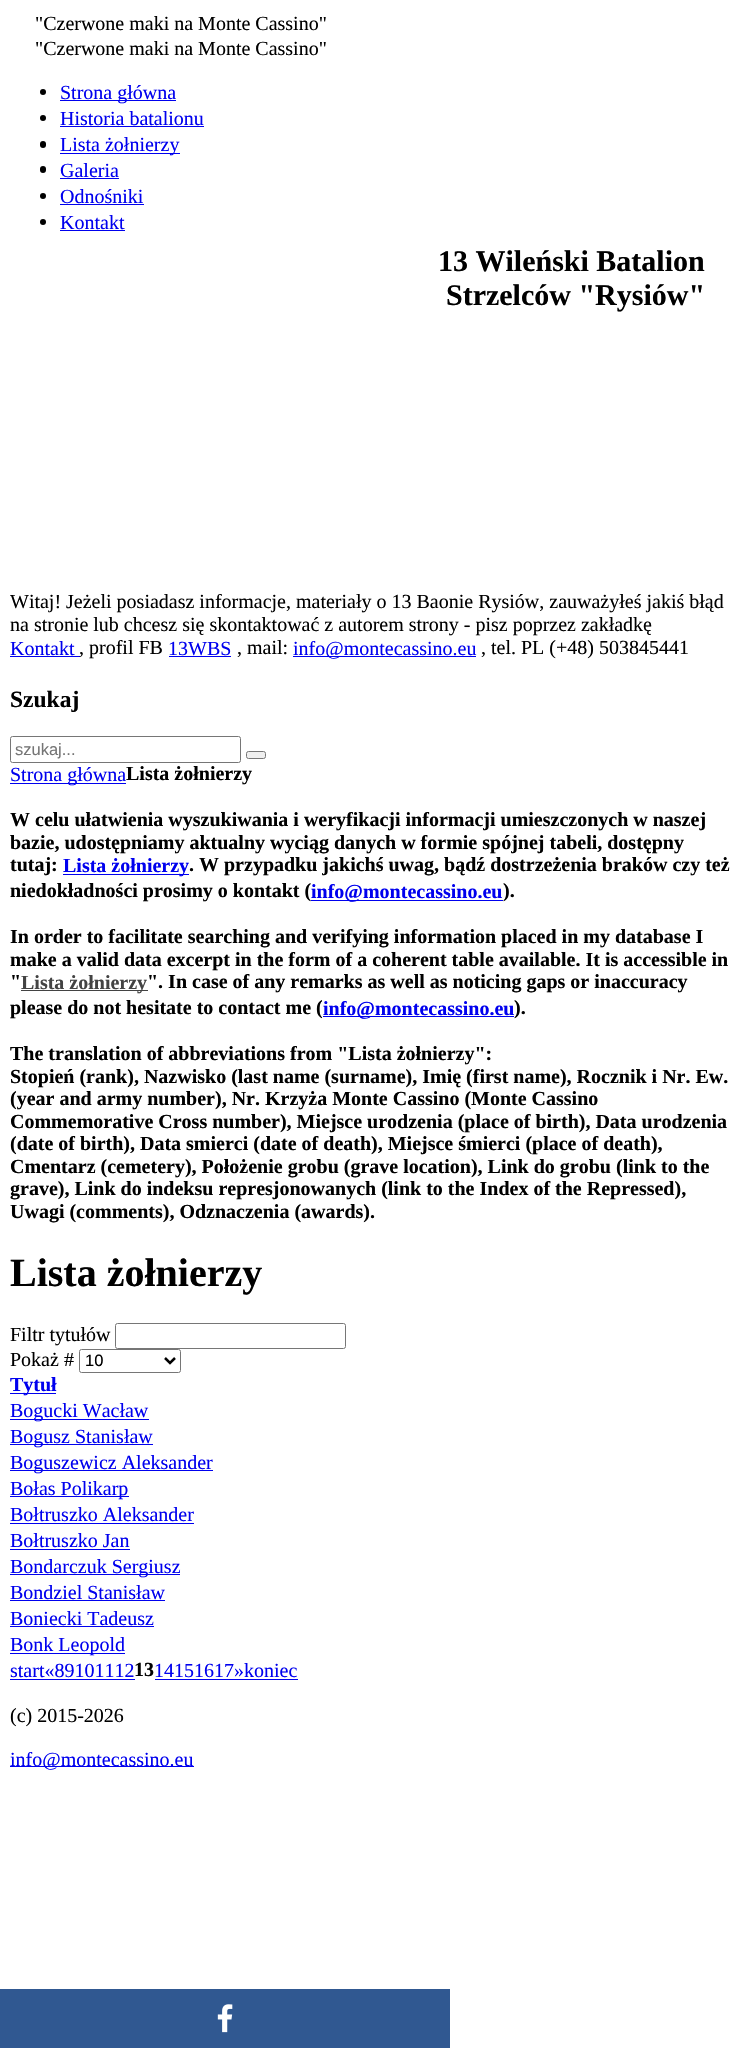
void draw(SkCanvas* canvas) {
    SkPaint paint;
    paint.setAntiAlias(true);
    canvas->clear(0xFFFFFFFF);
    SkFont font1(fontMgr->matchFamilyStyle("Liberation Serif", SkFontStyle::Normal()), 20);
    font1.setSubpixel(true);
    paint.setColor(0xFF000000);
    canvas->drawString("\"Czerwone maki na Monte Cassino\"", 35, 30, font1, paint);
    canvas->drawString("\"Czerwone maki na Monte Cassino\"", 35, 55, font1, paint);
    canvas->drawCircle(43, 92, 3, paint);
    paint.setColor(0xFF0000EE);
    canvas->drawRect(SkRect::MakeXYWH(60, 100, 116, 1), paint);
    canvas->drawString("Strona główna", 60, 99, font1, paint);
    paint.setColor(0xFF000000);
    canvas->drawCircle(43, 118, 3, paint);
    paint.setColor(0xFF0000EE);
    canvas->drawString("Historia batalionu", 60, 125, font1, paint);
    canvas->drawRect(SkRect::MakeXYWH(60, 126, 144, 1), paint);
    paint.setColor(0xFF000000);
    canvas->drawRoundRect(SkRect::MakeXYWH(40, 141, 6, 7), 3, 3, paint);
    paint.setColor(0xFF0000EE);
    canvas->drawRect(SkRect::MakeXYWH(60, 153, 120, 1), paint);
    canvas->drawString("Lista żołnierzy", 60, 151, font1, paint);
    paint.setColor(0xFF000000);
    canvas->drawRoundRect(SkRect::MakeXYWH(40, 166, 6, 7), 3, 3, paint);
    paint.setColor(0xFF0000EE);
    canvas->drawString("Galeria", 60, 177, font1, paint);
    canvas->drawRect(SkRect::MakeXYWH(60, 178, 59, 1), paint);
    paint.setColor(0xFF000000);
    canvas->drawCircle(43, 196, 3, paint);
    paint.setColor(0xFF0000EE);
    canvas->drawString("Odnośniki", 60, 203, font1, paint);
    canvas->drawRect(SkRect::MakeXYWH(60, 204, 84, 1), paint);
    paint.setColor(0xFF000000);
    canvas->drawCircle(43, 222, 3, paint);
    paint.setColor(0xFF0000EE);
    canvas->drawString("Kontakt", 60, 229, font1, paint);
    canvas->drawRect(SkRect::MakeXYWH(60, 230, 65, 1), paint);
    SkFont font2(fontMgr->matchFamilyStyle("Liberation Serif", SkFontStyle::Bold()), 30);
    font2.setSubpixel(true);
    paint.setColor(0xFF000000);
    canvas->drawString("13 Wileński Batalion", 438, 271, font2, paint);
    canvas->drawString("Strzelców \"Rysiów\"", 446, 305, font2, paint);
    canvas->drawString("Witaj! Jeżeli posiadasz informacje, materiały o 13 Baonie Rysiów, zauważyłeś jakiś błąd", 10, 608, font1, paint);
    canvas->drawString("na stronie lub chcesz się skontaktować z autorem strony - pisz poprzez zakładkę", 10, 631, font1, paint);
    paint.setColor(0xFF0000EE);
    canvas->drawString("Kontakt", 10, 655, font1, paint);
    canvas->drawRect(SkRect::MakeXYWH(10, 656, 70, 1), paint);
    paint.setColor(0xFF000000);
    canvas->drawString(", profil FB", 79, 654, font1, paint);
    paint.setColor(0xFF0000EE);
    canvas->drawString("13WBS", 168, 655, font1, paint);
    canvas->drawRect(SkRect::MakeXYWH(169, 656, 62, 1), paint);
    paint.setColor(0xFF000000);
    canvas->drawString(", mail:", 237, 654, font1, paint);
    paint.setColor(0xFF0000EE);
    canvas->drawRect(SkRect::MakeXYWH(293, 656, 183, 1), paint);
    canvas->drawString("info@montecassino.eu", 293, 655, font1, paint);
    paint.setColor(0xFF000000);
    canvas->drawString(", tel. PL (+48) 503845441", 481, 654, font1, paint);
    SkFont font3(fontMgr->matchFamilyStyle("Liberation Serif", SkFontStyle::Bold()), 23.5f);
    font3.setSubpixel(true);
    canvas->drawString("Szukaj", 10, 707, font3, paint);
    paint.setStyle(SkPaint::kStroke_Style);
    paint.setStrokeWidth(1);
    paint.setColor(0xFF767676);
    canvas->drawRoundRect(SkRect::MakeXYWH(10.5f, 736.5f, 230, 26), 2, 2, paint);
    SkFont font4(fontMgr->matchFamilyStyle("Liberation Sans", SkFontStyle::Normal()), 16.5f);
    font4.setSubpixel(true);
    paint.setStyle(SkPaint::kFill_Style);
    paint.setColor(0xFF757575);
    canvas->drawString("szukaj...", 15, 755, font4, paint);
    paint.setColor(0xFFEFEFEF);
    canvas->drawRoundRect(SkRect::MakeXYWH(246.5f, 751.5f, 19, 7), 2, 2, paint);
    paint.setStyle(SkPaint::kStroke_Style);
    paint.setColor(0xFF767676);
    canvas->drawRoundRect(SkRect::MakeXYWH(246.5f, 751.5f, 19, 7), 2, 2, paint);
    paint.setStyle(SkPaint::kFill_Style);
    paint.setColor(0xFF0000EE);
    canvas->drawRect(SkRect::MakeXYWH(10, 783, 116, 1), paint);
    canvas->drawString("Strona główna", 10, 781, font1, paint);
    SkFont font5(fontMgr->matchFamilyStyle("Liberation Serif", SkFontStyle::Bold()), 20);
    font5.setSubpixel(true);
    paint.setColor(0xFF000000);
    canvas->drawString("Lista żołnierzy", 126, 780, font5, paint);
    canvas->drawString("W celu ułatwienia wyszukiwania i weryfikacji informacji umieszczonych w naszej", 10, 826, font5, paint);
    canvas->drawString("bazie, udostępniamy aktualny wyciąg danych w formie spójnej tabeli, dostępny", 10, 849, font5, paint);
    canvas->drawString("tutaj:", 10, 871, font5, paint);
    paint.setColor(0xFF0000EE);
    canvas->drawRect(SkRect::MakeXYWH(63, 874, 126, 1), paint);
    canvas->drawString("Lista żołnierzy", 63, 872, font5, paint);
    paint.setColor(0xFF000000);
    canvas->drawString(". W przypadku jakichś uwag, bądź dostrzeżenia braków czy też", 189, 871, font5, paint);
    canvas->drawString("niedokładności prosimy o kontakt (", 10, 897, font5, paint);
    paint.setColor(0xFF0000EE);
    canvas->drawRect(SkRect::MakeXYWH(311, 900, 192, 1), paint);
    canvas->drawString("info@montecassino.eu", 311, 898, font5, paint);
    paint.setColor(0xFF000000);
    canvas->drawString(").", 503, 897, font5, paint);
    canvas->drawString("In order to facilitate searching and verifying information placed in my database I", 10, 943, font5, paint);
    canvas->drawString("make a valid data excerpt in the form of a coherent table available. It is accessible in", 10, 966, font5, paint);
    canvas->drawString("\"", 10, 988, font5, paint);
    paint.setColor(0xFF434343);
    canvas->drawRect(SkRect::MakeXYWH(21, 990, 127, 1), paint);
    canvas->drawString("Lista żołnierzy", 21, 989, font5, paint);
    paint.setColor(0xFF000000);
    canvas->drawString("\". In case of any remarks as well as noticing gaps or inaccuracy", 147, 988, font5, paint);
    canvas->drawString("please do not hesitate to contact me (", 10, 1014, font5, paint);
    paint.setColor(0xFF0000EE);
    canvas->drawRect(SkRect::MakeXYWH(323, 1016, 191, 1), paint);
    canvas->drawString("info@montecassino.eu", 323, 1015, font5, paint);
    paint.setColor(0xFF000000);
    canvas->drawString(").", 514, 1014, font5, paint);
    canvas->drawString("The translation of abbreviations from \"Lista żołnierzy\":", 10, 1060, font5, paint);
    canvas->drawString("Stopień (rank), Nazwisko (last name (surname), Imię (first name), Rocznik i Nr. Ew.", 10, 1083, font5, paint);
    canvas->drawString("(year and army number), Nr. Krzyża Monte Cassino (Monte Cassino", 10, 1105, font5, paint);
    canvas->drawString("Commemorative Cross number), Miejsce urodzenia (place of birth), Data urodzenia", 10, 1128, font5, paint);
    canvas->drawString("(date of birth), Data smierci (date of death), Miejsce śmierci (place of death),", 10, 1150, font5, paint);
    canvas->drawString("Cmentarz (cemetery), Położenie grobu (grave location), Link do grobu (link to the", 10, 1173, font5, paint);
    canvas->drawString("grave), Link do indeksu represjonowanych (link to the Index of the Repressed),", 10, 1195, font5, paint);
    canvas->drawString("Uwagi (comments), Odznaczenia (awards).", 10, 1218, font5, paint);
    SkFont font6(fontMgr->matchFamilyStyle("Liberation Serif", SkFontStyle::Bold()), 40);
    font6.setSubpixel(true);
    canvas->drawString("Lista żołnierzy", 10, 1286, font6, paint);
    canvas->drawString("Filtr tytułów", 10, 1341, font1, paint);
    paint.setStyle(SkPaint::kStroke_Style);
    paint.setColor(0xFF767676);
    canvas->drawRoundRect(SkRect::MakeXYWH(115.5f, 1323.5f, 230, 25), 2, 2, paint);
    paint.setStyle(SkPaint::kFill_Style);
    paint.setColor(0xFF000000);
    canvas->drawString("Pokaż #", 10, 1366, font1, paint);
    paint.setStyle(SkPaint::kStroke_Style);
    paint.setColor(0xFF767676);
    canvas->drawRoundRect(SkRect::MakeXYWH(79.5f, 1349.5f, 101, 23), 2, 2, paint);
    paint.setStrokeWidth(2.5f);
    paint.setColor(0xFF000000);
    canvas->drawPath(SkPathBuilder().moveTo(165, 1358).lineTo(170, 1363).lineTo(175, 1358).detach(), paint);
    paint.setStyle(SkPaint::kFill_Style);
    canvas->drawString("10", 85, 1366, font4, paint);
    paint.setColor(0xFF0000EE);
    canvas->drawRect(SkRect::MakeXYWH(10, 1393, 46, 1), paint);
    canvas->drawString("Tytuł", 10, 1391, font5, paint);
    canvas->drawRect(SkRect::MakeXYWH(10, 1419, 139, 1), paint);
    canvas->drawString("Bogucki Wacław", 10, 1417, font1, paint);
    canvas->drawRect(SkRect::MakeXYWH(10, 1444, 143, 1), paint);
    canvas->drawString("Bogusz Stanisław", 10, 1443, font1, paint);
    canvas->drawRect(SkRect::MakeXYWH(10, 1470, 203, 1), paint);
    canvas->drawString("Boguszewicz Aleksander", 10, 1469, font1, paint);
    canvas->drawRect(SkRect::MakeXYWH(10, 1496, 119, 1), paint);
    canvas->drawString("Bołas Polikarp", 10, 1495, font1, paint);
    canvas->drawString("Bołtruszko Aleksander", 10, 1521, font1, paint);
    canvas->drawRect(SkRect::MakeXYWH(10, 1523, 184, 1), paint);
    canvas->drawString("Bołtruszko Jan", 10, 1547, font1, paint);
    canvas->drawRect(SkRect::MakeXYWH(10, 1549, 120, 1), paint);
    canvas->drawRect(SkRect::MakeXYWH(10, 1574, 170, 1), paint);
    canvas->drawString("Bondarczuk Sergiusz", 10, 1573, font1, paint);
    canvas->drawString("Bondziel Stanisław", 10, 1599, font1, paint);
    canvas->drawRect(SkRect::MakeXYWH(10, 1600, 155, 1), paint);
    canvas->drawString("Boniecki Tadeusz", 10, 1625, font1, paint);
    canvas->drawRect(SkRect::MakeXYWH(10, 1626, 144, 1), paint);
    canvas->drawRect(SkRect::MakeXYWH(10, 1653, 115, 1), paint);
    canvas->drawString("Bonk Leopold", 10, 1651, font1, paint);
    canvas->drawString("start«89101112", 10, 1677, font1, paint);
    canvas->drawRect(SkRect::MakeXYWH(10, 1679, 125, 1), paint);
    paint.setColor(0xFF000000);
    canvas->drawString("13", 134, 1676, font5, paint);
    paint.setColor(0xFF0000EE);
    canvas->drawString("14151617»koniec", 154, 1677, font1, paint);
    canvas->drawRect(SkRect::MakeXYWH(155, 1679, 143, 1), paint);
    paint.setColor(0xFF000000);
    canvas->drawString("(c) 2015-2026", 10, 1722, font1, paint);
    paint.setColor(0xFF0000EE);
    canvas->drawRect(SkRect::MakeXYWH(10, 1766, 184, 1), paint);
    canvas->drawString("info@montecassino.eu", 10, 1766, font1, paint);
    paint.setColor(0xFF305891);
    canvas->drawRect(SkRect::MakeXYWH(0, 1989, 450, 59), paint);
    canvas->drawImageRect(SkImages::DeferredFromEncodedData(SkData::MakeFromFileName("img1.png")), SkRect::MakeXYWH(217, 2004, 16, 29), SkSamplingOptions());
}
